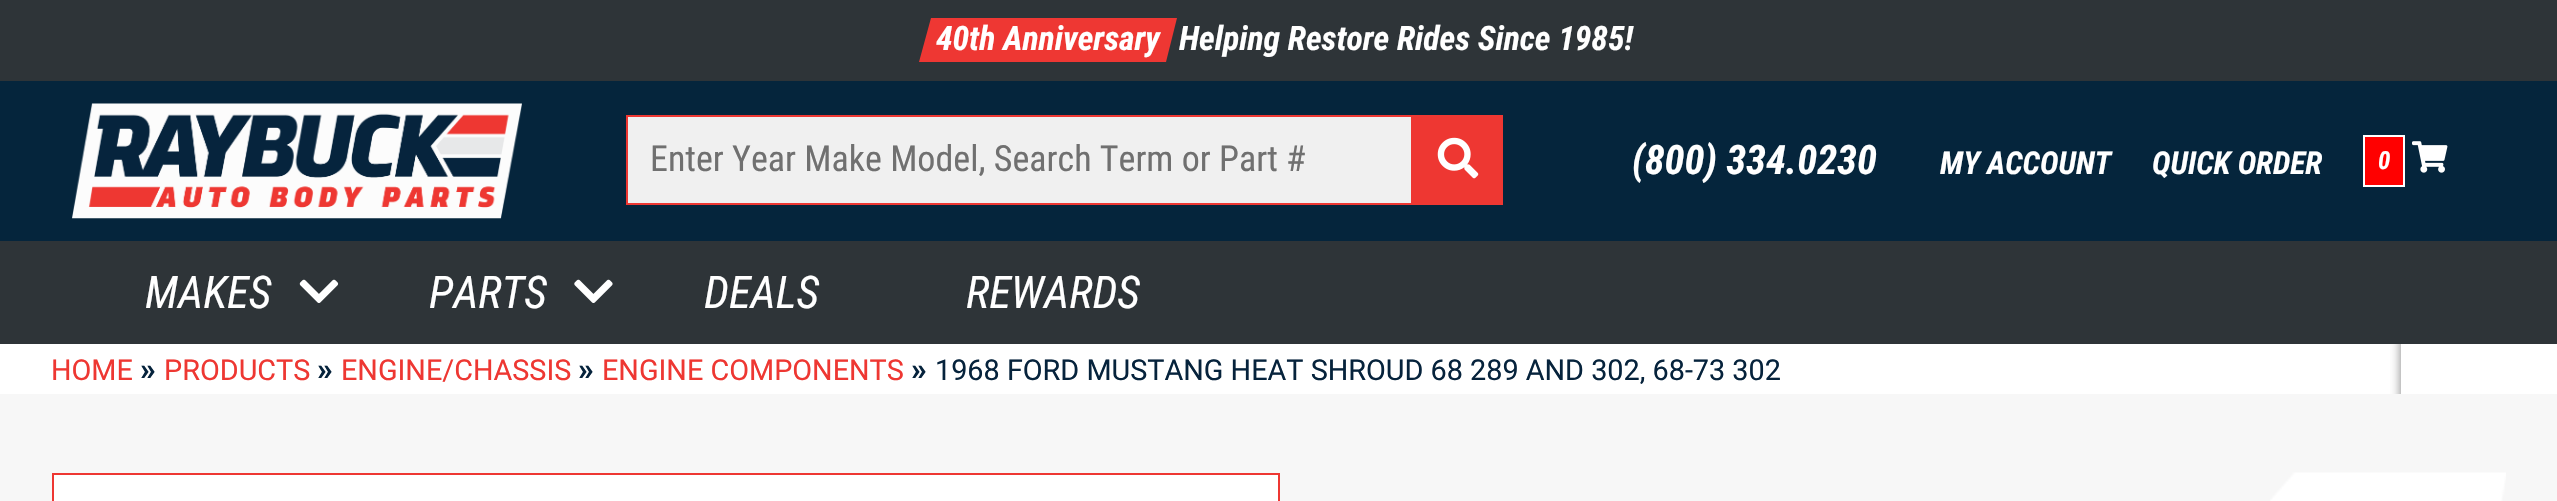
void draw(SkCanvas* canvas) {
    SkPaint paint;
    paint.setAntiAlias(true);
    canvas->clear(0xFFFFFFFF);
    paint.setColor(0xFF05253C);
    canvas->drawRect(SkRect::MakeXYWH(0, 81, 2557, 160), paint);
    paint.setColor(0xFF2E3438);
    canvas->drawRect(SkRect::MakeXYWH(0, 0, 2557, 81), paint);
    paint.setColor(0xFFEE3733);
    canvas->drawPath(SkPathBuilder().moveTo(931, 18).lineTo(1177, 18).lineTo(1166, 62).lineTo(919, 62).close().detach(), paint);
    SkFont font1(fontMgr->matchFamilyStyle("Roboto Condensed", SkFontStyle::BoldItalic()), 33.75f);
    font1.setSubpixel(true);
    paint.setColor(0xFFFFFFFF);
    canvas->drawString("40th Anniversary", 936, 50, font1, paint);
    canvas->drawString("Helping Restore Rides Since 1985!", 1179, 50, font1, paint);
    canvas->drawImageRect(SkImages::DeferredFromEncodedData(SkData::MakeFromFileName("img1.png")), SkRect::MakeXYWH(72, 103, 450, 116), SkSamplingOptions());
    paint.setColor(0xFFF0F0F0);
    canvas->drawRect(SkRect::MakeXYWH(627, 116, 785, 88), paint);
    paint.setStyle(SkPaint::kStroke_Style);
    paint.setStrokeWidth(2);
    paint.setColor(0xFFEE3732);
    canvas->drawRect(SkRect::MakeXYWH(627, 116, 785, 88), paint);
    SkFont font2(fontMgr->matchFamilyStyle("Roboto Condensed", SkFontStyle::Normal()), 36);
    font2.setSubpixel(true);
    paint.setStyle(SkPaint::kFill_Style);
    paint.setColor(0xFF707070);
    canvas->drawString("Enter Year Make Model, Search Term or Part #", 650, 171, font2, paint);
    paint.setColor(0xFFEE3732);
    canvas->drawRect(SkRect::MakeXYWH(1413, 115, 90, 90), paint);
    canvas->drawImageRect(SkImages::DeferredFromEncodedData(SkData::MakeFromFileName("img2.png")), SkRect::MakeXYWH(1437, 137, 42, 42), SkSamplingOptions());
    SkFont font3(fontMgr->matchFamilyStyle("Roboto Condensed", SkFontStyle::BoldItalic()), 40.5f);
    font3.setSubpixel(true);
    paint.setColor(0xFFFFFFFF);
    canvas->drawString("(800) 334.0230", 1632, 174, font3, paint);
    SkFont font4(fontMgr->matchFamilyStyle("Roboto Condensed", SkFontStyle::BoldItalic()), 31.5f);
    font4.setSubpixel(true);
    canvas->drawString("MY ACCOUNT", 1940, 174, font4, paint);
    canvas->drawString("QUICK ORDER", 2152, 174, font4, paint);
    paint.setColor(0xFFFF0000);
    canvas->drawRect(SkRect::MakeXYWH(2364, 136, 40, 50), paint);
    paint.setStyle(SkPaint::kStroke_Style);
    paint.setColor(0xFFFFFFFF);
    canvas->drawRect(SkRect::MakeXYWH(2364, 136, 40, 50), paint);
    SkFont font5(fontMgr->matchFamilyStyle("Roboto Condensed", SkFontStyle::BoldItalic()), 25);
    font5.setSubpixel(true);
    paint.setStyle(SkPaint::kFill_Style);
    canvas->drawString("0", 2378, 169, font5, paint);
    canvas->drawImageRect(SkImages::DeferredFromEncodedData(SkData::MakeFromFileName("img3.png")), SkRect::MakeXYWH(2412, 141, 36, 32), SkSamplingOptions());
    canvas->save();
    canvas->clipRect(SkRect::MakeXYWH(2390, 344, 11, 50));
    paint.setColor(0xFF808080);
    paint.setMaskFilter(SkMaskFilter::MakeBlur(kNormal_SkBlurStyle, 5.5f));
    canvas->drawRoundRect(SkRect::MakeXYWH(2401, 335, 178, 135), 5, 5, paint);
    paint.setMaskFilter(nullptr);
    canvas->restore();
    paint.setColor(0xFF2E3438);
    canvas->drawRect(SkRect::MakeXYWH(0, 241, 2557, 103), paint);
    SkFont font6(fontMgr->matchFamilyStyle("Roboto Condensed", SkFontStyle::Italic()), 45);
    font6.setSubpixel(true);
    paint.setColor(0xFFFFFFFF);
    canvas->drawString("MAKES", 145, 308, font6, paint);
    canvas->drawImageRect(SkImages::DeferredFromEncodedData(SkData::MakeFromFileName("img4.png")), SkRect::MakeXYWH(299, 279, 40, 24), SkSamplingOptions());
    canvas->drawString("PARTS", 429, 308, font6, paint);
    canvas->drawImageRect(SkImages::DeferredFromEncodedData(SkData::MakeFromFileName("img5.png")), SkRect::MakeXYWH(574, 279, 39, 24), SkSamplingOptions());
    canvas->drawString("DEALS", 704, 308, font6, paint);
    canvas->drawString("REWARDS", 966, 308, font6, paint);
    SkFont font7(fontMgr->matchFamilyStyle("Roboto", SkFontStyle::Normal()), 28.8f);
    font7.setSubpixel(true);
    paint.setColor(0xFFEE3732);
    canvas->drawString("HOME", 51, 380, font7, paint);
    SkFont font8(fontMgr->matchFamilyStyle("Roboto", SkFontStyle::Bold()), 31.5f);
    font8.setSubpixel(true);
    paint.setColor(0xFF06233C);
    canvas->drawString("»", 140, 380, font8, paint);
    paint.setColor(0xFFEE3732);
    canvas->drawString("PRODUCTS", 164, 380, font7, paint);
    paint.setColor(0xFF06233C);
    canvas->drawString("»", 317, 380, font8, paint);
    paint.setColor(0xFFEE3732);
    canvas->drawString("ENGINE/CHASSIS", 341, 380, font7, paint);
    paint.setColor(0xFF06233C);
    canvas->drawString("»", 578, 380, font8, paint);
    paint.setColor(0xFFEE3732);
    canvas->drawString("ENGINE COMPONENTS", 602, 380, font7, paint);
    paint.setColor(0xFF06233C);
    canvas->drawString("»", 911, 380, font8, paint);
    canvas->drawString("1968 FORD MUSTANG HEAT SHROUD 68 289 AND 302, 68-73 302", 935, 380, font7, paint);
    paint.setColor(0xFFF7F7F7);
    canvas->drawRect(SkRect::MakeXYWH(0, 394, 2557, 107), paint);
    paint.setColor(0xFFFFFFFF);
    canvas->drawRect(SkRect::MakeXYWH(53, 474, 1226, 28), paint);
    paint.setStyle(SkPaint::kStroke_Style);
    paint.setColor(0xFFEE3732);
    canvas->drawRect(SkRect::MakeXYWH(53, 474, 1226, 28), paint);
    canvas->drawImageRect(SkImages::DeferredFromEncodedData(SkData::MakeFromFileName("img6.png")), SkRect::MakeXYWH(2270, 472, 236, 29), SkSamplingOptions());
}
